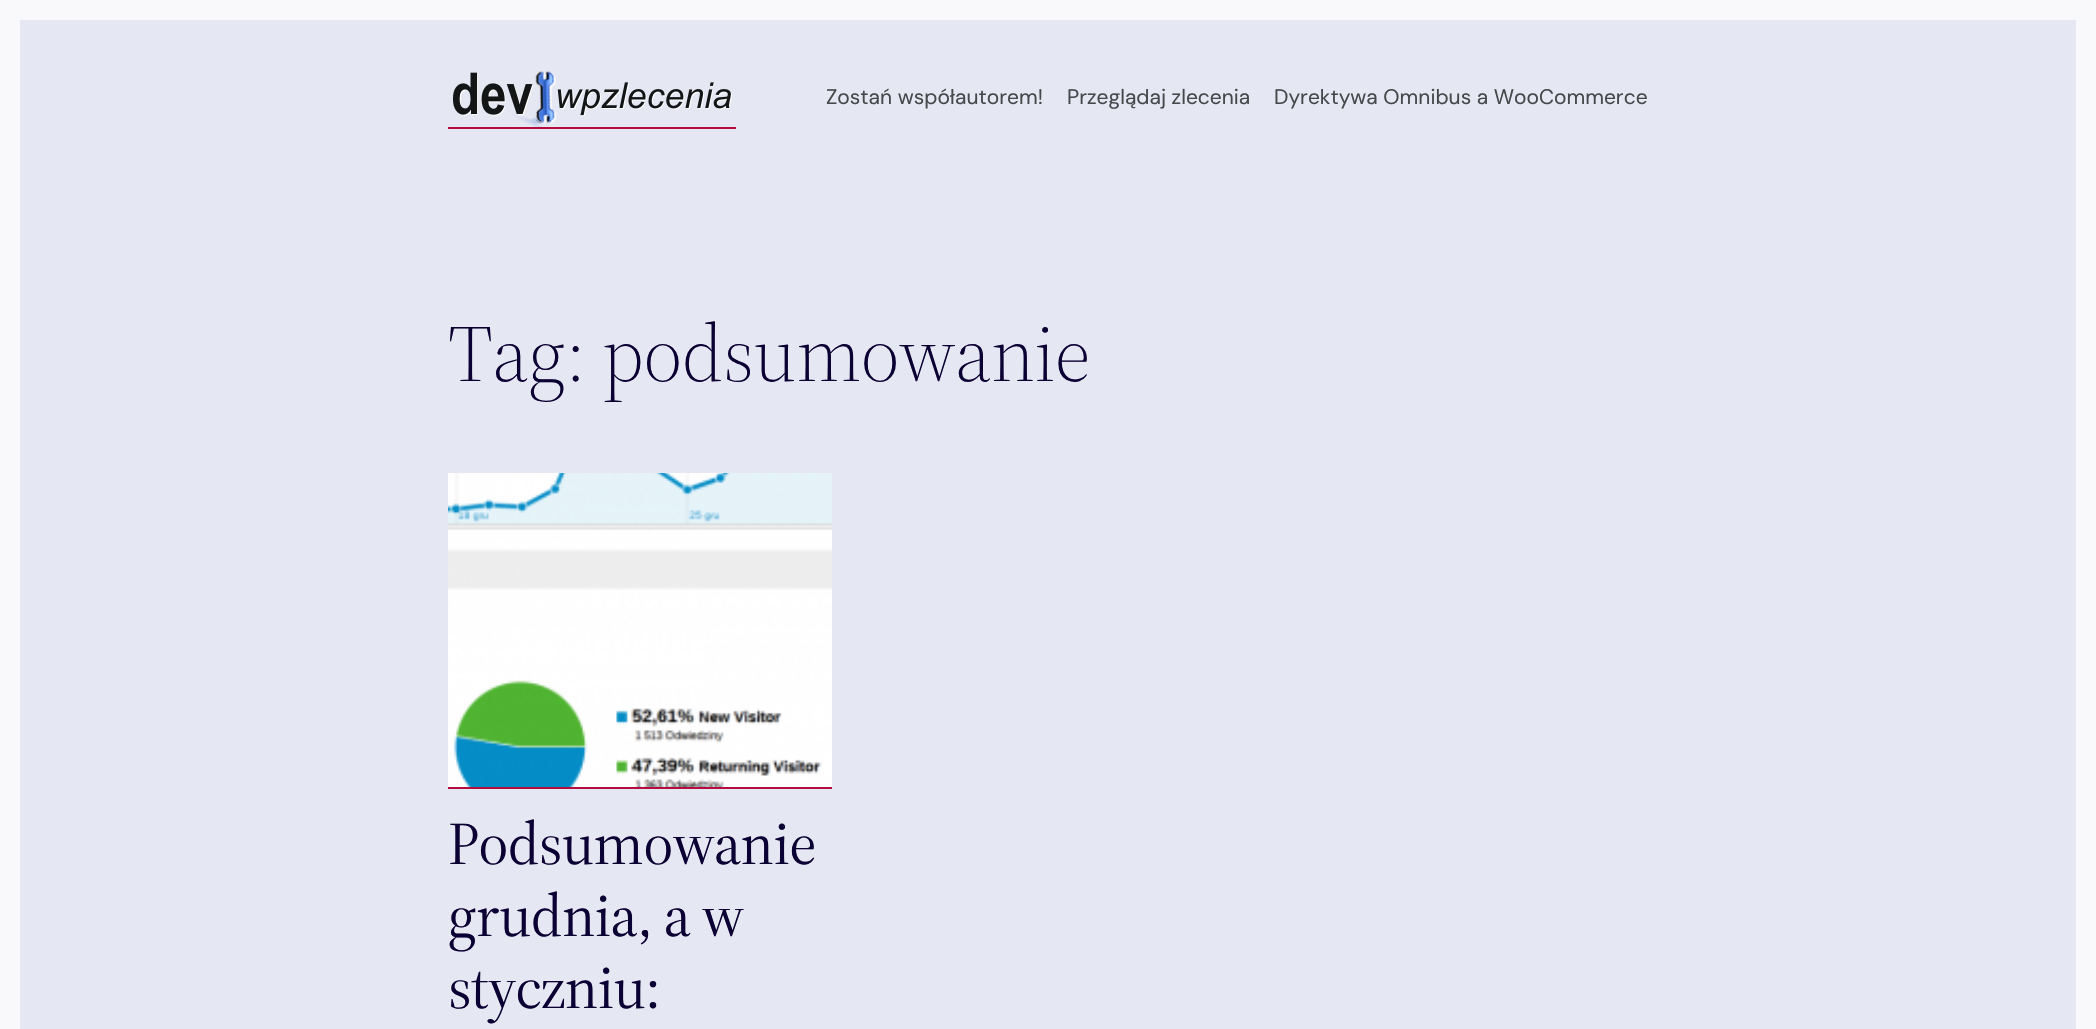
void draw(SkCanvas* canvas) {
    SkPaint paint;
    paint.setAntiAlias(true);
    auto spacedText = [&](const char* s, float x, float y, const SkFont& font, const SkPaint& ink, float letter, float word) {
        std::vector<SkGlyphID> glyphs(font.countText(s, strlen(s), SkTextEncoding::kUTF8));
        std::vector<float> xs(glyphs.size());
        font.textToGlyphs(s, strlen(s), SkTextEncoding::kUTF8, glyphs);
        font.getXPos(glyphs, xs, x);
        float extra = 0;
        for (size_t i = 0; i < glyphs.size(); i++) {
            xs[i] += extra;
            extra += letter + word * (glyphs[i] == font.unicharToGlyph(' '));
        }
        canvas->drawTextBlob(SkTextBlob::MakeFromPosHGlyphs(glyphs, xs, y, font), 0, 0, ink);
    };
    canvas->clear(0xFFE5E7F2);
    paint.setStyle(SkPaint::kStroke_Style);
    paint.setStrokeWidth(20);
    paint.setColor(0xFFF9F9FB);
    canvas->drawRect(SkRect::MakeXYWH(10, 10, 2076, 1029), paint);
    paint.setStyle(SkPaint::kFill_Style);
    paint.setColor(0xFFB50B3E);
    canvas->drawRect(SkRect::MakeXYWH(448, 127, 288, 2), paint);
    canvas->drawImageRect(SkImages::DeferredFromEncodedData(SkData::MakeFromFileName("img1.png")), SkRect::MakeXYWH(452, 71, 280, 56), SkSamplingOptions());
    SkFont font1(fontMgr->matchFamilyStyle("DM Sans", SkFontStyle::Normal()), 21);
    font1.setSubpixel(true);
    paint.setColor(0xFF47484B);
    canvas->drawString("Zostań współautorem!", 826, 104, font1, paint);
    canvas->drawString("Przeglądaj zlecenia", 1067, 104, font1, paint);
    canvas->drawString("Dyrektywa Omnibus a WooCommerce", 1274, 104, font1, paint);
    SkFont font2(fontMgr->matchFamilyStyle("Source Serif 4", SkFontStyle(300, SkFontStyle::kNormal_Width, SkFontStyle::kUpright_Slant)), 80);
    font2.setSubpixel(true);
    paint.setColor(0xFF0B0033);
    spacedText("Tag: podsumowanie", 448, 381, font2, paint, -0.75f, 0);
    paint.setColor(0xFFB50B3E);
    canvas->drawRect(SkRect::MakeXYWH(448, 787, 384, 2), paint);
    canvas->drawImageRect(SkImages::DeferredFromEncodedData(SkData::MakeFromFileName("img2.png")), SkRect::MakeXYWH(448, 473, 384, 314), SkSamplingOptions());
    SkFont font3(fontMgr->matchFamilyStyle("Source Serif 4", SkFontStyle::Normal()), 60);
    font3.setSubpixel(true);
    paint.setColor(0xFF0B0033);
    spacedText("Podsumowanie", 448, 864, font3, paint, -0.6f, 0);
    spacedText("grudnia, a w", 448, 936, font3, paint, -0.6f, 0);
    spacedText("styczniu:", 448, 1008, font3, paint, -0.6f, 0);
}
